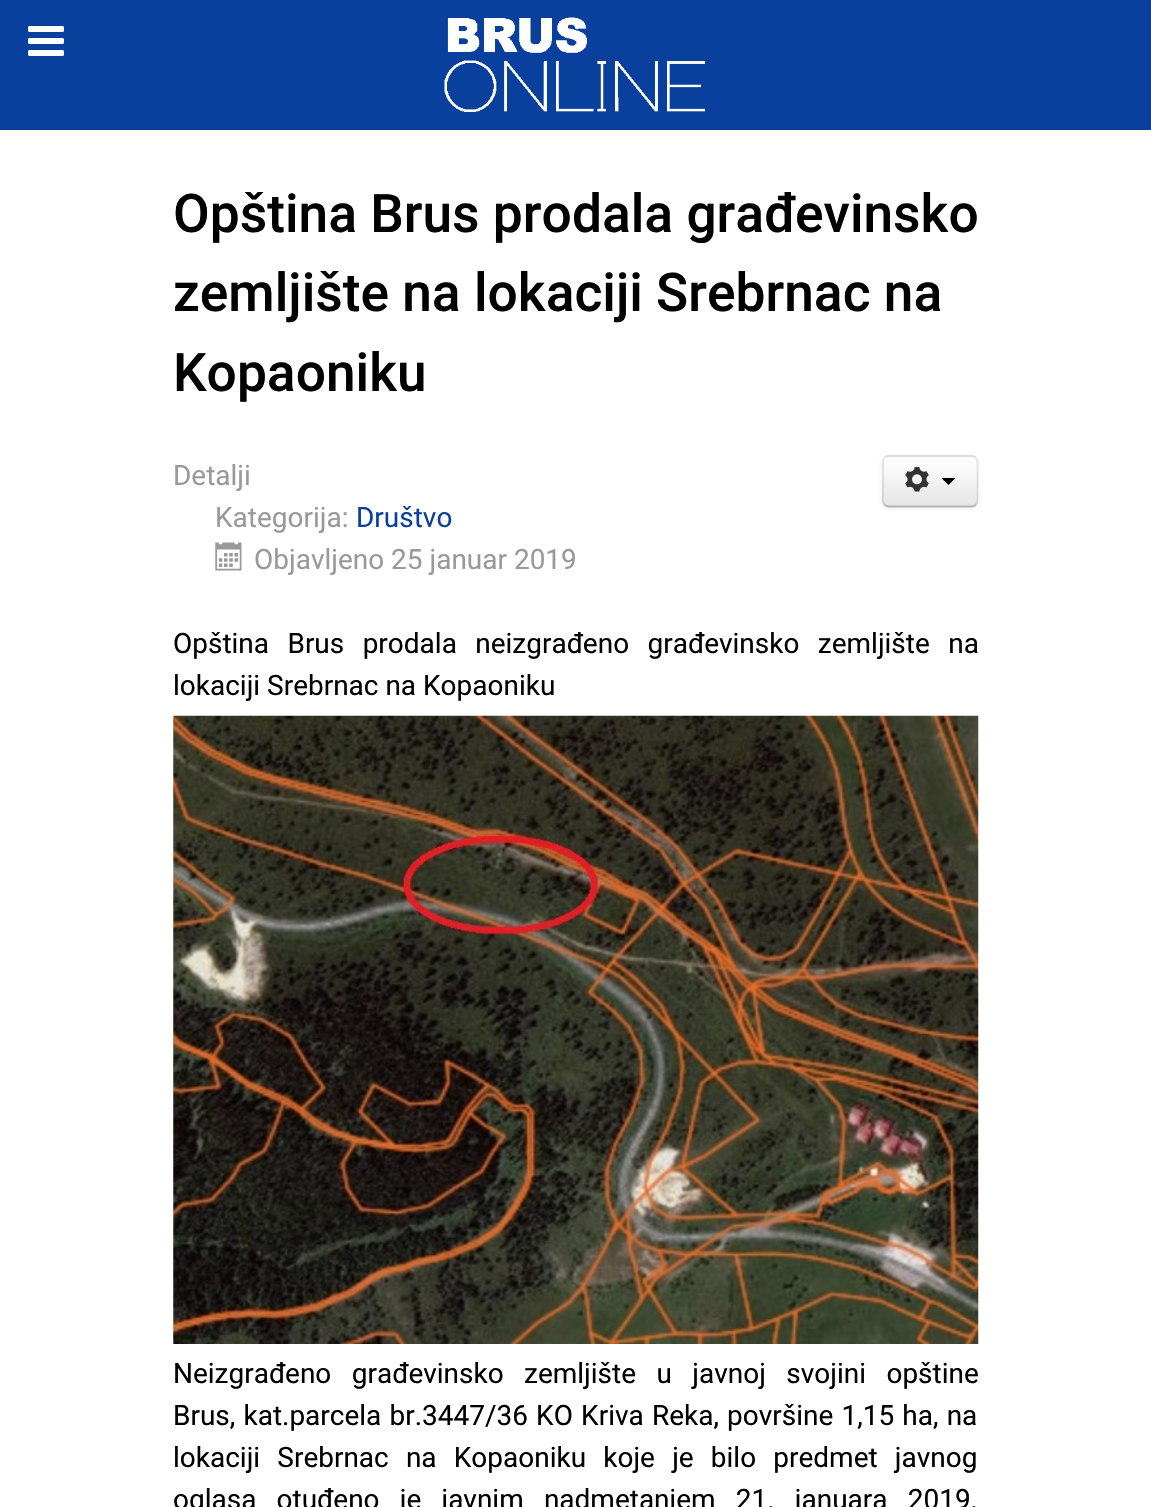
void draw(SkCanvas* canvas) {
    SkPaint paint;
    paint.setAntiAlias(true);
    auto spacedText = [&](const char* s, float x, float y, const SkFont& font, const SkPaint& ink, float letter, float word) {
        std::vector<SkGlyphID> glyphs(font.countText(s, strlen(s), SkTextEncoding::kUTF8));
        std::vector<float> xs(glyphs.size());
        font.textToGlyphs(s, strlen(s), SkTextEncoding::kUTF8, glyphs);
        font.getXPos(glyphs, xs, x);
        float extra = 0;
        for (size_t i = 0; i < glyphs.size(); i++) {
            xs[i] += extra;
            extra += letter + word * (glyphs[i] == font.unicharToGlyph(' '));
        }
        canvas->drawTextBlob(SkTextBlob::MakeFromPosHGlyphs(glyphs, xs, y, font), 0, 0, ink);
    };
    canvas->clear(0xFFFFFFFF);
    paint.setColor(0xFF0A409D);
    canvas->drawRect(SkRect::MakeXYWH(0, 0, 1151, 130), paint);
    canvas->drawImageRect(SkImages::DeferredFromEncodedData(SkData::MakeFromFileName("img1.png")), SkRect::MakeXYWH(444, 17, 261, 95), SkSamplingOptions());
    canvas->drawImageRect(SkImages::DeferredFromEncodedData(SkData::MakeFromFileName("img2.png")), SkRect::MakeXYWH(28, 26, 36, 30), SkSamplingOptions());
    SkFont font1(fontMgr->matchFamilyStyle("Roboto", SkFontStyle(500, SkFontStyle::kNormal_Width, SkFontStyle::kUpright_Slant)), 53.25f);
    font1.setSubpixel(true);
    paint.setColor(0xFF000000);
    canvas->drawString("Opština Brus prodala građevinsko", 173, 232, font1, paint);
    canvas->drawString("zemljište na lokaciji Srebrnac na", 173, 311, font1, paint);
    canvas->drawString("Kopaoniku", 173, 391, font1, paint);
    SkFont font2(fontMgr->matchFamilyStyle("Roboto", SkFontStyle::Normal()), 28);
    font2.setSubpixel(true);
    paint.setColor(0xFF999999);
    canvas->drawString("Detalji", 173, 485, font2, paint);
    canvas->drawString("Kategorija:", 215, 527, font2, paint);
    paint.setColor(0xFF0A409D);
    canvas->drawString("Društvo", 356, 527, font2, paint);
    canvas->drawImageRect(SkImages::DeferredFromEncodedData(SkData::MakeFromFileName("img3.png")), SkRect::MakeXYWH(215, 542, 27, 29), SkSamplingOptions());
    paint.setColor(0xFF999999);
    canvas->drawString("Objavljeno 25 januar 2019", 254, 569, font2, paint);
    paint.setColor(0x0D000000);
    paint.setMaskFilter(SkMaskFilter::MakeBlur(kNormal_SkBlurStyle, 2));
    canvas->drawRoundRect(SkRect::MakeXYWH(882, 457, 96, 52), 7, 7, paint);
    paint.setMaskFilter(nullptr);
    paint.setColor(0xFFF5F5F5);
    canvas->drawRoundRect(SkRect::MakeXYWH(882, 455, 96, 53), 7, 7, paint);
    canvas->save();
    canvas->clipPath(SkPathBuilder().moveTo(889, 455).lineTo(971, 455).cubicTo(975, 455, 978, 458, 978, 462).lineTo(978, 501).cubicTo(978, 505, 975, 508, 971, 508).lineTo(889, 508).cubicTo(885, 508, 882, 505, 882, 501).lineTo(882, 462).cubicTo(882, 458, 885, 455, 889, 455).close().detach(), true);
    {
        const SkColor colors[] = {0xFFFFFFFF, 0xFFE6E6E6};
        const float stops[] = {0, 1};
        const SkPoint ends[] = {{930, 457}, {930, 506}};
        paint.setShader(SkGradientShader::MakeLinear(ends, colors, stops, 2, SkTileMode::kClamp));
        paint.setAlpha(255);
    }
    canvas->drawRect(SkRect::MakeXYWH(882, 457, 96, 49), paint);
    canvas->restore();
    paint.setShader(nullptr);
    paint.setColor(0x33FFFFFF);
    canvas->drawPath(SkPathBuilder().moveTo(889, 458).lineTo(971, 458).cubicTo(974, 458, 976, 461, 976, 464).lineTo(976, 502).lineTo(976, 505).cubicTo(976, 504, 977, 502, 977, 501).lineTo(977, 462).cubicTo(977, 459, 975, 457, 972, 457).lineTo(889, 457).cubicTo(886, 457, 884, 459, 884, 462).lineTo(884, 464).cubicTo(884, 461, 886, 458, 889, 458).close().detach(), paint);
    paint.setStyle(SkPaint::kStroke_Style);
    paint.setStrokeWidth(1.8f);
    paint.setColor(0xFFB3B3B3);
    canvas->drawPath(SkPathBuilder().moveTo(975.5f, 505).cubicTo(974.5f, 506, 973, 506.5f, 971, 506.5f).lineTo(889, 506.5f).cubicTo(887.5f, 506.5f, 886, 506, 884.5f, 505).detach(), paint);
    paint.setColor(0x1A000000);
    canvas->drawPath(SkPathBuilder().moveTo(884.5f, 505).cubicTo(883.5f, 503.5f, 883, 502, 883, 500.5f).lineTo(883, 462).cubicTo(883, 460.5f, 883.5f, 459, 884.5f, 457.5f).cubicTo(886, 456.5f, 887.5f, 456, 889, 456).lineTo(971, 456).cubicTo(973, 456, 974.5f, 456.5f, 975.5f, 457.5f).cubicTo(976.5f, 459, 977.5f, 460.5f, 977.5f, 462).lineTo(977.5f, 500.5f).cubicTo(977.5f, 502, 976.5f, 503.5f, 975.5f, 505).detach(), paint);
    canvas->drawImageRect(SkImages::DeferredFromEncodedData(SkData::MakeFromFileName("img4.png")), SkRect::MakeXYWH(905, 467, 24, 25), SkSamplingOptions());
    paint.setStyle(SkPaint::kFill_Style);
    paint.setColor(0xFF000000);
    canvas->drawPath(SkPathBuilder().moveTo(941.5f, 478).lineTo(955.5f, 478).lineTo(948.5f, 485).close().detach(), paint);
    spacedText("Opština Brus prodala neizgrađeno građevinsko zemljište na", 173, 653, font2, paint, 0, 11.5f);
    canvas->drawString("lokaciji Srebrnac na Kopaoniku", 173, 695, font2, paint);
    canvas->drawImageRect(SkImages::DeferredFromEncodedData(SkData::MakeFromFileName("img5.png")), SkRect::MakeXYWH(173, 715, 806, 629), SkSamplingOptions());
    spacedText("Neizgrađeno građevinsko zemljište u javnoj svojini opštine", 173, 1383, font2, paint, 0, 13.5f);
    spacedText("Brus, kat.parcela br.3447/36 KO Kriva Reka, površine 1,15 ha, na", 173, 1425, font2, paint, 0, 1.25f);
    spacedText("lokaciji Srebrnac na Kopaoniku koje je bilo predmet javnog", 173, 1467, font2, paint, 0, 10.25f);
    spacedText("oglasa otuđeno je javnim nadmetanjem 21. januara 2019.", 173, 1509, font2, paint, 0, 13.25f);
}
